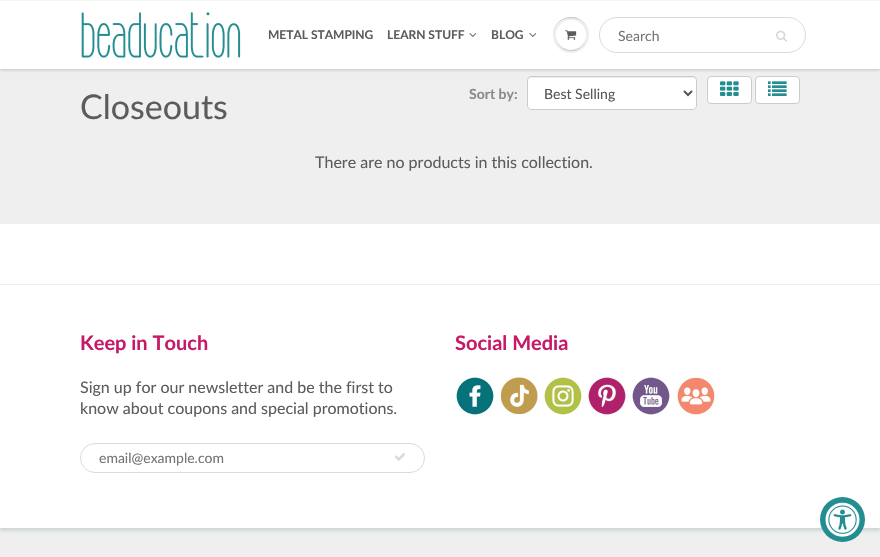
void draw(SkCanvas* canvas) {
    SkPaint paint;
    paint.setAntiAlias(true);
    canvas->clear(0xFFFFFFFF);
    paint.setColor(0xFFEFEFEF);
    canvas->drawRect(SkRect::MakeXYWH(0, 69, 880, 155), paint);
    paint.setColor(0x1F0B191C);
    paint.setMaskFilter(SkMaskFilter::MakeBlur(kNormal_SkBlurStyle, 1));
    canvas->drawRect(SkRect::MakeXYWH(0, 2, 880, 69), paint);
    paint.setMaskFilter(nullptr);
    paint.setColor(0xFFFFFFFF);
    canvas->drawRect(SkRect::MakeXYWH(0, 1, 880, 68), paint);
    paint.setColor(0xFFF3F6F6);
    canvas->drawRect(SkRect::MakeXYWH(0, 0, 880, 1), paint);
    canvas->drawImageRect(SkImages::DeferredFromEncodedData(SkData::MakeFromFileName("img1.png")), SkRect::MakeXYWH(81, 12, 160, 46), SkSamplingOptions());
    SkFont font1(fontMgr->matchFamilyStyle("Lato", SkFontStyle::Bold()), 12);
    font1.setSubpixel(true);
    paint.setColor(0xFF5C5C5C);
    canvas->drawString("METAL STAMPING", 268, 39, font1, paint);
    canvas->drawString("LEARN STUFF", 387, 39, font1, paint);
    canvas->drawImageRect(SkImages::DeferredFromEncodedData(SkData::MakeFromFileName("img2.png")), SkRect::MakeXYWH(469, 33, 8, 4), SkSamplingOptions());
    canvas->drawString("BLOG", 491, 39, font1, paint);
    canvas->drawImageRect(SkImages::DeferredFromEncodedData(SkData::MakeFromFileName("img2.png")), SkRect::MakeXYWH(529, 33, 8, 4), SkSamplingOptions());
    paint.setColor(0xFFEDEFEF);
    canvas->drawCircle(571, 35, 18, paint);
    paint.setColor(0xFFC9CBCB);
    canvas->drawPath(SkPathBuilder().moveTo(571, 18).cubicTo(583, 18, 589, 26.5f, 589, 35.5f).cubicTo(589, 32, 588, 28, 586, 25).cubicTo(576, 10, 552.5f, 17.5f, 553, 35.5f).cubicTo(553, 26.5f, 559, 18, 571, 18).close().detach(), paint);
    canvas->drawPath(SkPathBuilder().moveTo(586, 35.5f).cubicTo(585.5f, 54.5f, 556.5f, 54.5f, 556, 35.5f).cubicTo(555.5f, 50.5f, 575, 57, 583.5f, 44.5f).cubicTo(585, 42, 586, 38.5f, 586, 35.5f).close().detach(), paint);
    paint.setColor(0xFFFFFFFF);
    canvas->drawCircle(571, 35, 15, paint);
    canvas->drawPath(SkPathBuilder().moveTo(571, 21).cubicTo(581, 21, 586, 28, 586, 35.5f).cubicTo(586, 32.5f, 585, 29, 583.5f, 26.5f).cubicTo(575, 14, 555.5f, 20.5f, 556, 35.5f).cubicTo(556, 28, 561, 21, 571, 21).close().detach(), paint);
    canvas->drawImageRect(SkImages::DeferredFromEncodedData(SkData::MakeFromFileName("img3.png")), SkRect::MakeXYWH(565, 30, 12, 10), SkSamplingOptions());
    paint.setStyle(SkPaint::kStroke_Style);
    paint.setStrokeWidth(1);
    paint.setColor(0xFFD7DBDB);
    canvas->drawRoundRect(SkRect::MakeXYWH(599.5f, 17.5f, 206, 35), 17.5f, 17.5f, paint);
    SkFont font2(fontMgr->matchFamilyStyle("Lato", SkFontStyle::Normal()), 14);
    font2.setSubpixel(true);
    paint.setStyle(SkPaint::kFill_Style);
    paint.setColor(0xFF757575);
    canvas->drawString("Search", 618, 41, font2, paint);
    canvas->drawImageRect(SkImages::DeferredFromEncodedData(SkData::MakeFromFileName("img4.png")), SkRect::MakeXYWH(776, 30, 11, 12), SkSamplingOptions());
    SkFont font3(fontMgr->matchFamilyStyle("Lato", SkFontStyle::Normal()), 34);
    font3.setSubpixel(true);
    paint.setColor(0xFF5C5C5C);
    canvas->drawString("Closeouts", 80, 119, font3, paint);
    SkFont font4(fontMgr->matchFamilyStyle("Lato", SkFontStyle::Bold()), 14);
    font4.setSubpixel(true);
    paint.setColor(0xFF898989);
    canvas->drawString("Sort by:", 469, 99, font4, paint);
    paint.setColor(0xFFFFFFFF);
    canvas->drawRoundRect(SkRect::MakeXYWH(527, 76, 170, 34), 4, 4, paint);
    paint.setColor(0xFFECECEC);
    canvas->drawPath(SkPathBuilder().moveTo(531, 78).lineTo(693, 78).cubicTo(695, 78, 696, 79, 696, 81).lineTo(696, 80).cubicTo(696, 78, 695, 77, 693, 77).lineTo(531, 77).cubicTo(529, 77, 528, 78, 528, 80).lineTo(528, 81).cubicTo(528, 79, 529, 78, 531, 78).close().detach(), paint);
    paint.setStyle(SkPaint::kStroke_Style);
    paint.setColor(0xFFCCCCCC);
    canvas->drawRoundRect(SkRect::MakeXYWH(527.5f, 76.5f, 169, 33), 3.5f, 3.5f, paint);
    paint.setStrokeWidth(2);
    paint.setColor(0xFF555555);
    canvas->drawPath(SkPathBuilder().moveTo(684, 91).lineTo(688, 95).lineTo(692, 91).detach(), paint);
    paint.setStyle(SkPaint::kFill_Style);
    canvas->drawString("Best Selling", 544, 99, font2, paint);
    paint.setColor(0xFFFFFFFF);
    canvas->drawRoundRect(SkRect::MakeXYWH(707.5f, 76.5f, 44, 27), 3.5f, 3.5f, paint);
    paint.setStyle(SkPaint::kStroke_Style);
    paint.setStrokeWidth(1);
    paint.setColor(0xFFCCCCCC);
    canvas->drawRoundRect(SkRect::MakeXYWH(707.5f, 76.5f, 44, 27), 3.5f, 3.5f, paint);
    canvas->drawImageRect(SkImages::DeferredFromEncodedData(SkData::MakeFromFileName("img5.png")), SkRect::MakeXYWH(720, 81, 19, 15), SkSamplingOptions());
    paint.setStyle(SkPaint::kFill_Style);
    paint.setColor(0xFFFFFFFF);
    canvas->drawRoundRect(SkRect::MakeXYWH(755.5f, 76.5f, 44, 27), 3.5f, 3.5f, paint);
    paint.setStyle(SkPaint::kStroke_Style);
    paint.setColor(0xFFCCCCCC);
    canvas->drawRoundRect(SkRect::MakeXYWH(755.5f, 76.5f, 44, 27), 3.5f, 3.5f, paint);
    canvas->drawImageRect(SkImages::DeferredFromEncodedData(SkData::MakeFromFileName("img6.png")), SkRect::MakeXYWH(768, 81, 19, 15), SkSamplingOptions());
    SkFont font5(fontMgr->matchFamilyStyle("Lato", SkFontStyle::Normal()), 16);
    font5.setSubpixel(true);
    paint.setStyle(SkPaint::kFill_Style);
    paint.setColor(0xFF5C5C5C);
    canvas->drawString("There are no products in this collection.", 315, 168, font5, paint);
    paint.setColor(0xFFEFEFEF);
    canvas->drawRect(SkRect::MakeXYWH(0, 528, 880, 29), paint);
    canvas->save();
    canvas->clipRect(SkRect::MakeXYWH(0, 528, 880, 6));
    paint.setColor(0xFFD1D7D7);
    paint.setMaskFilter(SkMaskFilter::MakeBlur(kNormal_SkBlurStyle, 1.5f));
    canvas->drawRect(SkRect::MakeXYWH(0, 287, 880, 244), paint);
    paint.setMaskFilter(nullptr);
    canvas->restore();
    paint.setColor(0xFFECEFEF);
    canvas->drawRect(SkRect::MakeXYWH(0, 284, 880, 1), paint);
    SkFont font6(fontMgr->matchFamilyStyle("Lato", SkFontStyle::Bold()), 20);
    font6.setSubpixel(true);
    paint.setColor(0xFFC61967);
    canvas->drawString("Keep in Touch", 80, 350, font6, paint);
    paint.setColor(0xFF5C5C5C);
    canvas->drawString("Sign up for our newsletter and be the first to", 80, 393, font5, paint);
    canvas->drawString("know about coupons and special promotions.", 80, 414, font5, paint);
    paint.setStyle(SkPaint::kStroke_Style);
    paint.setColor(0xFFD7DBDB);
    canvas->drawRoundRect(SkRect::MakeXYWH(80.5f, 443.5f, 344, 29), 14.5f, 14.5f, paint);
    paint.setStyle(SkPaint::kFill_Style);
    paint.setColor(0xFF757575);
    canvas->drawString("email@example.com", 99, 463, font2, paint);
    canvas->drawImageRect(SkImages::DeferredFromEncodedData(SkData::MakeFromFileName("img7.png")), SkRect::MakeXYWH(395, 453, 10, 8), SkSamplingOptions());
    paint.setColor(0xFFC61967);
    canvas->drawString("Social Media", 455, 350, font6, paint);
    canvas->drawImageRect(SkImages::DeferredFromEncodedData(SkData::MakeFromFileName("img8.png")), SkRect::MakeXYWH(455, 376, 40, 40), SkSamplingOptions());
    canvas->drawImageRect(SkImages::DeferredFromEncodedData(SkData::MakeFromFileName("img9.png")), SkRect::MakeXYWH(499, 376, 40, 39), SkSamplingOptions());
    canvas->drawImageRect(SkImages::DeferredFromEncodedData(SkData::MakeFromFileName("img10.png")), SkRect::MakeXYWH(543, 376, 40, 40), SkSamplingOptions());
    canvas->drawImageRect(SkImages::DeferredFromEncodedData(SkData::MakeFromFileName("img11.png")), SkRect::MakeXYWH(587, 376, 40, 40), SkSamplingOptions());
    canvas->drawImageRect(SkImages::DeferredFromEncodedData(SkData::MakeFromFileName("img12.png")), SkRect::MakeXYWH(632, 377, 38, 38), SkSamplingOptions());
    canvas->drawImageRect(SkImages::DeferredFromEncodedData(SkData::MakeFromFileName("img13.png")), SkRect::MakeXYWH(677, 376, 39, 40), SkSamplingOptions());
    paint.setColor(0xFF238D91);
    canvas->drawCircle(842.5f, 519.5f, 22.5f, paint);
    canvas->drawImageRect(SkImages::DeferredFromEncodedData(SkData::MakeFromFileName("img14.png")), SkRect::MakeXYWH(825, 502, 35, 35), SkSamplingOptions());
}
